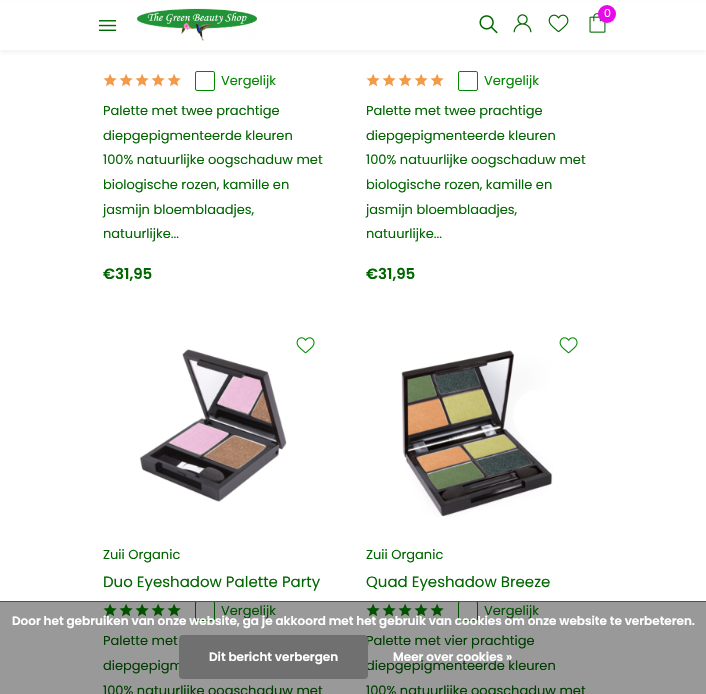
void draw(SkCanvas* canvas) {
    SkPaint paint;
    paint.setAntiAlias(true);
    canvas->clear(0xFFFFFFFF);
    paint.setColor(0xFF999999);
    canvas->drawRect(SkRect::MakeXYWH(0, 602, 706, 92), paint);
    paint.setColor(0x0A000000);
    paint.setMaskFilter(SkMaskFilter::MakeBlur(kNormal_SkBlurStyle, 1.5f));
    canvas->drawRect(SkRect::MakeXYWH(0, 3, 706, 50), paint);
    paint.setMaskFilter(nullptr);
    paint.setColor(0xFFFFFFFF);
    canvas->drawRect(SkRect::MakeXYWH(0, 2, 706, 48), paint);
    canvas->drawImageRect(SkImages::DeferredFromEncodedData(SkData::MakeFromFileName("img1.png")), SkRect::MakeXYWH(137, 8, 120, 33), SkSamplingOptions());
    canvas->drawImageRect(SkImages::DeferredFromEncodedData(SkData::MakeFromFileName("img2.png")), SkRect::MakeXYWH(589, 13, 17, 20), SkSamplingOptions());
    paint.setColor(0x0F000000);
    paint.setMaskFilter(SkMaskFilter::MakeBlur(kNormal_SkBlurStyle, 1));
    canvas->drawRoundRect(SkRect::MakeXYWH(598, 7, 18, 18), 9, 9, paint);
    paint.setMaskFilter(nullptr);
    paint.setColor(0xFFE90AEA);
    canvas->drawCircle(607, 14, 9, paint);
    SkFont font1(fontMgr->matchFamilyStyle("Poppins", SkFontStyle::Normal()), 11);
    font1.setSubpixel(true);
    paint.setColor(0xFFFFFFFF);
    canvas->drawString("0", 604, 17, font1, paint);
    canvas->drawImageRect(SkImages::DeferredFromEncodedData(SkData::MakeFromFileName("img3.png")), SkRect::MakeXYWH(513, 14, 19, 19), SkSamplingOptions());
    canvas->drawImageRect(SkImages::DeferredFromEncodedData(SkData::MakeFromFileName("img4.png")), SkRect::MakeXYWH(548, 14, 21, 19), SkSamplingOptions());
    canvas->drawImageRect(SkImages::DeferredFromEncodedData(SkData::MakeFromFileName("img5.png")), SkRect::MakeXYWH(98, 20, 19, 11), SkSamplingOptions());
    canvas->drawImageRect(SkImages::DeferredFromEncodedData(SkData::MakeFromFileName("img6.png")), SkRect::MakeXYWH(479, 15, 19, 19), SkSamplingOptions());
    canvas->drawImageRect(SkImages::DeferredFromEncodedData(SkData::MakeFromFileName("img7.png")), SkRect::MakeXYWH(103, 73, 14, 14), SkSamplingOptions());
    canvas->drawImageRect(SkImages::DeferredFromEncodedData(SkData::MakeFromFileName("img7.png")), SkRect::MakeXYWH(119, 73, 14, 14), SkSamplingOptions());
    canvas->drawImageRect(SkImages::DeferredFromEncodedData(SkData::MakeFromFileName("img7.png")), SkRect::MakeXYWH(135, 73, 14, 14), SkSamplingOptions());
    canvas->drawImageRect(SkImages::DeferredFromEncodedData(SkData::MakeFromFileName("img7.png")), SkRect::MakeXYWH(151, 73, 14, 14), SkSamplingOptions());
    canvas->drawImageRect(SkImages::DeferredFromEncodedData(SkData::MakeFromFileName("img7.png")), SkRect::MakeXYWH(167, 73, 14, 14), SkSamplingOptions());
    paint.setStyle(SkPaint::kStroke_Style);
    paint.setStrokeWidth(1);
    paint.setColor(0xFF008800);
    canvas->drawRoundRect(SkRect::MakeXYWH(195.5f, 71.5f, 19, 19), 1.5f, 1.5f, paint);
    SkFont font2(fontMgr->matchFamilyStyle("Poppins", SkFontStyle::Normal()), 13);
    font2.setSubpixel(true);
    paint.setStyle(SkPaint::kFill_Style);
    canvas->drawString("Vergelijk", 221, 85, font2, paint);
    paint.setColor(0xFF006600);
    canvas->drawString("Palette met twee prachtige", 103, 115, font2, paint);
    canvas->drawString("diepgepigmenteerde kleuren", 103, 140, font2, paint);
    canvas->drawString("100% natuurlijke oogschaduw met", 103, 164, font2, paint);
    canvas->drawString("biologische rozen, kamille en", 103, 189, font2, paint);
    canvas->drawString("jasmijn bloemblaadjes,", 103, 214, font2, paint);
    canvas->drawString("natuurlijke...", 103, 238, font2, paint);
    SkFont font3(fontMgr->matchFamilyStyle("Poppins", SkFontStyle(600, SkFontStyle::kNormal_Width, SkFontStyle::kUpright_Slant)), 15);
    font3.setSubpixel(true);
    canvas->drawString("€31,95", 103, 279, font3, paint);
    canvas->drawImageRect(SkImages::DeferredFromEncodedData(SkData::MakeFromFileName("img7.png")), SkRect::MakeXYWH(366, 73, 14, 14), SkSamplingOptions());
    canvas->drawImageRect(SkImages::DeferredFromEncodedData(SkData::MakeFromFileName("img7.png")), SkRect::MakeXYWH(382, 73, 14, 14), SkSamplingOptions());
    canvas->drawImageRect(SkImages::DeferredFromEncodedData(SkData::MakeFromFileName("img7.png")), SkRect::MakeXYWH(398, 73, 14, 14), SkSamplingOptions());
    canvas->drawImageRect(SkImages::DeferredFromEncodedData(SkData::MakeFromFileName("img7.png")), SkRect::MakeXYWH(414, 73, 14, 14), SkSamplingOptions());
    canvas->drawImageRect(SkImages::DeferredFromEncodedData(SkData::MakeFromFileName("img7.png")), SkRect::MakeXYWH(430, 73, 14, 14), SkSamplingOptions());
    paint.setStyle(SkPaint::kStroke_Style);
    paint.setColor(0xFF008800);
    canvas->drawRoundRect(SkRect::MakeXYWH(458.5f, 71.5f, 19, 19), 1.5f, 1.5f, paint);
    paint.setStyle(SkPaint::kFill_Style);
    canvas->drawString("Vergelijk", 484, 85, font2, paint);
    paint.setColor(0xFF006600);
    canvas->drawString("Palette met twee prachtige", 366, 115, font2, paint);
    canvas->drawString("diepgepigmenteerde kleuren", 366, 140, font2, paint);
    canvas->drawString("100% natuurlijke oogschaduw met", 366, 164, font2, paint);
    canvas->drawString("biologische rozen, kamille en", 366, 189, font2, paint);
    canvas->drawString("jasmijn bloemblaadjes,", 366, 214, font2, paint);
    canvas->drawString("natuurlijke...", 366, 238, font2, paint);
    canvas->drawString("€31,95", 366, 279, font3, paint);
    canvas->drawImageRect(SkImages::DeferredFromEncodedData(SkData::MakeFromFileName("img8.png")), SkRect::MakeXYWH(296, 337, 19, 17), SkSamplingOptions());
    canvas->drawImageRect(SkImages::DeferredFromEncodedData(SkData::MakeFromFileName("img9.png")), SkRect::MakeXYWH(139, 349, 148, 153), SkSamplingOptions());
    canvas->drawString("Zuii Organic", 103, 559, font2, paint);
    SkFont font4(fontMgr->matchFamilyStyle("Poppins", SkFontStyle::Normal()), 15);
    font4.setSubpixel(true);
    canvas->drawString("Duo Eyeshadow Palette Party", 103, 587, font4, paint);
    canvas->drawImageRect(SkImages::DeferredFromEncodedData(SkData::MakeFromFileName("img10.png")), SkRect::MakeXYWH(103, 603, 14, 14), SkSamplingOptions());
    canvas->drawImageRect(SkImages::DeferredFromEncodedData(SkData::MakeFromFileName("img10.png")), SkRect::MakeXYWH(119, 603, 14, 14), SkSamplingOptions());
    canvas->drawImageRect(SkImages::DeferredFromEncodedData(SkData::MakeFromFileName("img10.png")), SkRect::MakeXYWH(135, 603, 14, 14), SkSamplingOptions());
    canvas->drawImageRect(SkImages::DeferredFromEncodedData(SkData::MakeFromFileName("img10.png")), SkRect::MakeXYWH(151, 603, 14, 14), SkSamplingOptions());
    canvas->drawImageRect(SkImages::DeferredFromEncodedData(SkData::MakeFromFileName("img10.png")), SkRect::MakeXYWH(167, 603, 14, 14), SkSamplingOptions());
    paint.setStyle(SkPaint::kStroke_Style);
    paint.setColor(0xFF005200);
    canvas->drawRoundRect(SkRect::MakeXYWH(195.5f, 601.5f, 19, 19), 1.5f, 1.5f, paint);
    paint.setStyle(SkPaint::kFill_Style);
    canvas->drawString("Vergelijk", 221, 615, font2, paint);
    paint.setColor(0xFF003D00);
    canvas->drawString("Palette met", 103, 645, font2, paint);
    canvas->drawString("diepgepigm", 103, 670, font2, paint);
    canvas->drawString("100% natuurlijke oogschaduw met", 103, 695, font2, paint);
    canvas->drawImageRect(SkImages::DeferredFromEncodedData(SkData::MakeFromFileName("img8.png")), SkRect::MakeXYWH(559, 337, 19, 17), SkSamplingOptions());
    canvas->drawImageRect(SkImages::DeferredFromEncodedData(SkData::MakeFromFileName("img11.png")), SkRect::MakeXYWH(401, 350, 152, 167), SkSamplingOptions());
    paint.setColor(0xFF006600);
    canvas->drawString("Zuii Organic", 366, 559, font2, paint);
    canvas->drawString("Quad Eyeshadow Breeze", 366, 587, font4, paint);
    canvas->drawImageRect(SkImages::DeferredFromEncodedData(SkData::MakeFromFileName("img10.png")), SkRect::MakeXYWH(366, 603, 14, 14), SkSamplingOptions());
    canvas->drawImageRect(SkImages::DeferredFromEncodedData(SkData::MakeFromFileName("img10.png")), SkRect::MakeXYWH(382, 603, 14, 14), SkSamplingOptions());
    canvas->drawImageRect(SkImages::DeferredFromEncodedData(SkData::MakeFromFileName("img10.png")), SkRect::MakeXYWH(398, 603, 14, 14), SkSamplingOptions());
    canvas->drawImageRect(SkImages::DeferredFromEncodedData(SkData::MakeFromFileName("img10.png")), SkRect::MakeXYWH(414, 603, 14, 14), SkSamplingOptions());
    canvas->drawImageRect(SkImages::DeferredFromEncodedData(SkData::MakeFromFileName("img10.png")), SkRect::MakeXYWH(430, 603, 14, 14), SkSamplingOptions());
    paint.setStyle(SkPaint::kStroke_Style);
    paint.setColor(0xFF005200);
    canvas->drawRoundRect(SkRect::MakeXYWH(458.5f, 601.5f, 19, 19), 1.5f, 1.5f, paint);
    paint.setStyle(SkPaint::kFill_Style);
    canvas->drawString("Vergelijk", 484, 615, font2, paint);
    paint.setColor(0xFF003D00);
    canvas->drawString("Palette met vier prachtige", 366, 645, font2, paint);
    canvas->drawString("diepgepigmenteerde kleuren", 366, 670, font2, paint);
    canvas->drawString("100% natuurlijke oogschaduw met", 366, 695, font2, paint);
    paint.setColor(0xFF008800);
    canvas->drawRect(SkRect::MakeXYWH(0, 601, 706, 1), paint);
    SkFont font5(fontMgr->matchFamilyStyle("Poppins", SkFontStyle(600, SkFontStyle::kNormal_Width, SkFontStyle::kUpright_Slant)), 12);
    font5.setSubpixel(true);
    paint.setColor(0xFFFFFFFF);
    canvas->drawString("Door het gebruiken van onze website, ga je akkoord met het gebruik van cookies om onze website te verbeteren.", 12, 625, font5, paint);
    paint.setColor(0xFF707070);
    canvas->drawRoundRect(SkRect::MakeXYWH(179, 635, 189, 44), 4, 4, paint);
    paint.setColor(0xFFFFFFFF);
    canvas->drawString("Dit bericht verbergen", 209, 661, font5, paint);
    canvas->drawString("Meer over cookies »", 393, 661, font5, paint);
}
